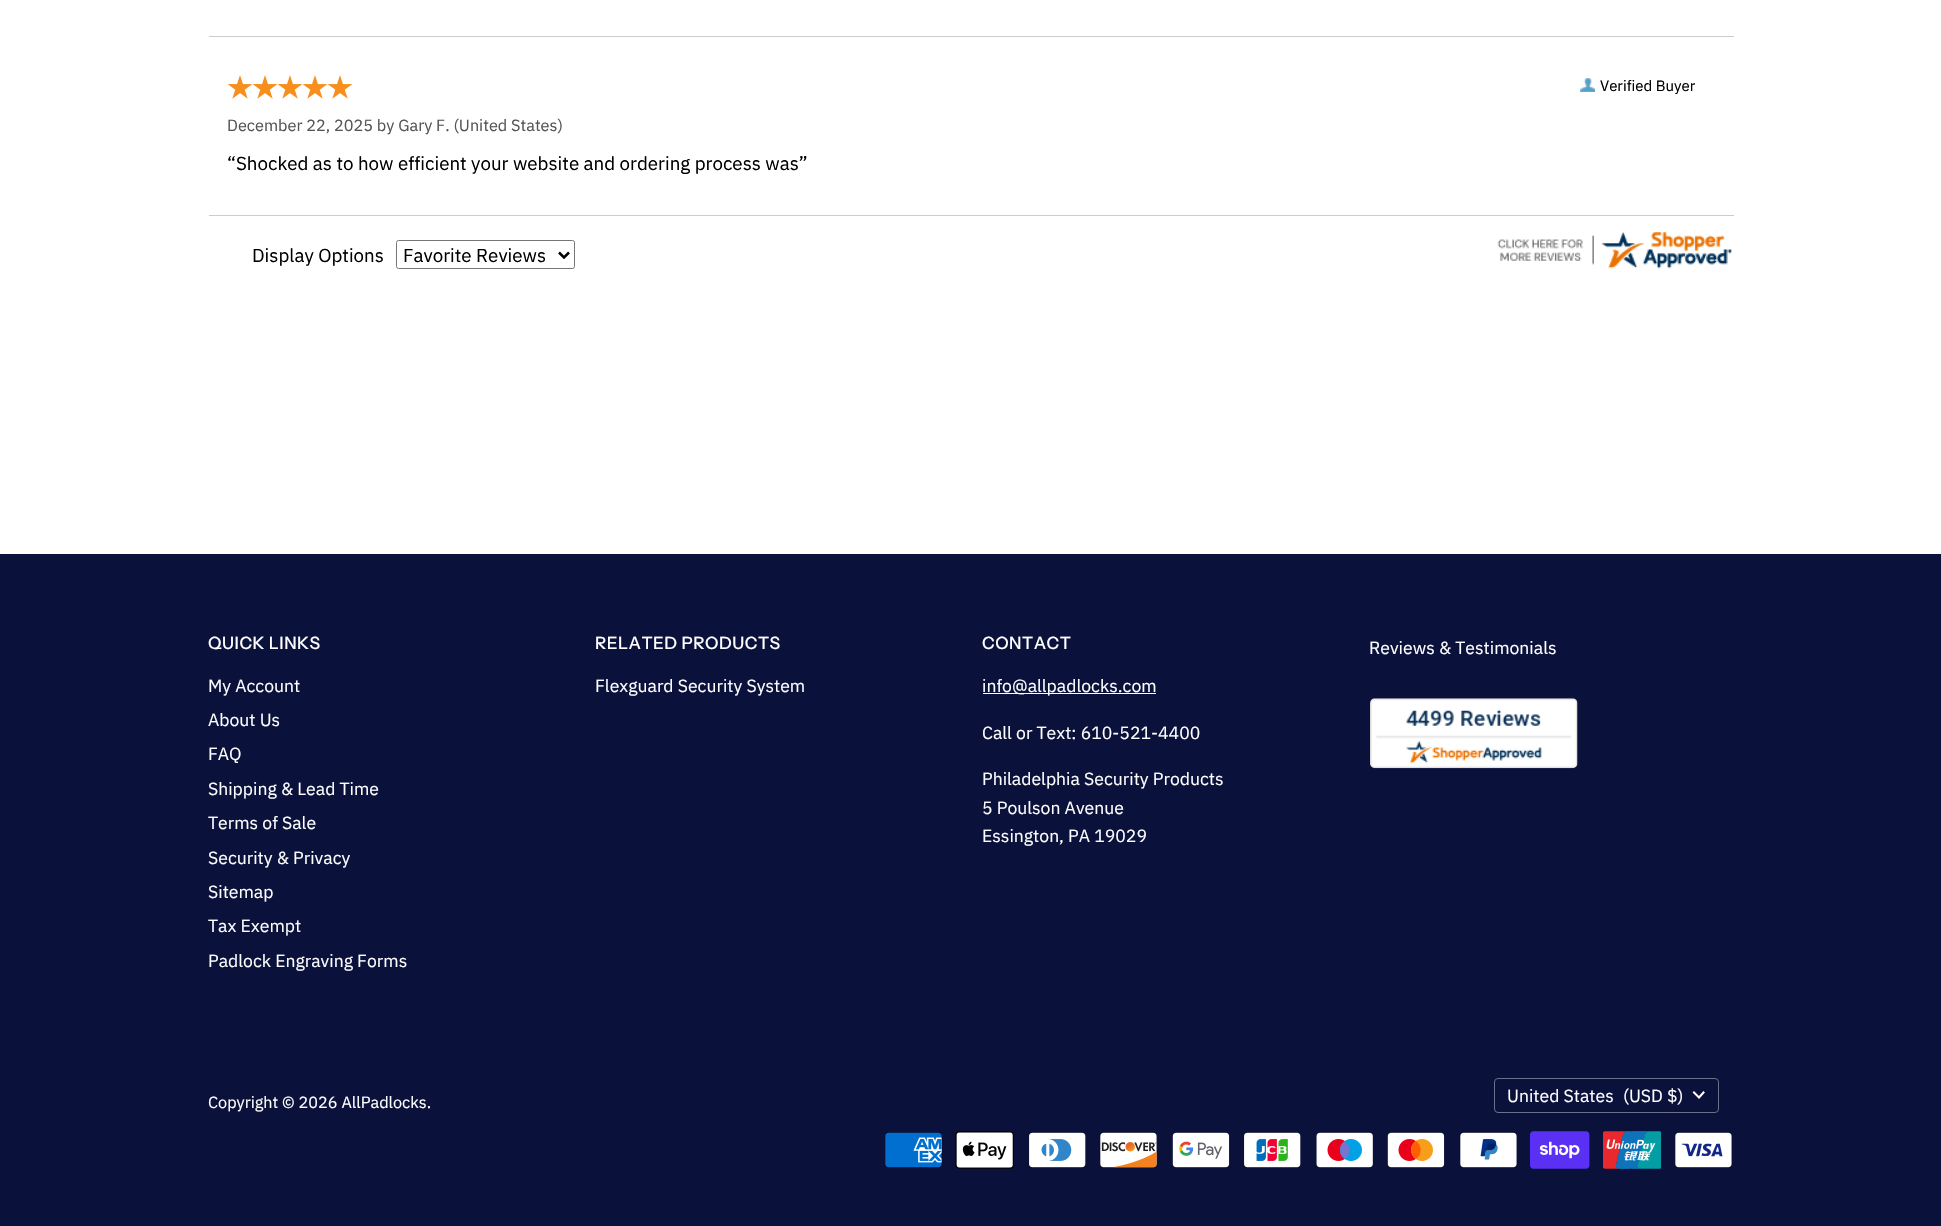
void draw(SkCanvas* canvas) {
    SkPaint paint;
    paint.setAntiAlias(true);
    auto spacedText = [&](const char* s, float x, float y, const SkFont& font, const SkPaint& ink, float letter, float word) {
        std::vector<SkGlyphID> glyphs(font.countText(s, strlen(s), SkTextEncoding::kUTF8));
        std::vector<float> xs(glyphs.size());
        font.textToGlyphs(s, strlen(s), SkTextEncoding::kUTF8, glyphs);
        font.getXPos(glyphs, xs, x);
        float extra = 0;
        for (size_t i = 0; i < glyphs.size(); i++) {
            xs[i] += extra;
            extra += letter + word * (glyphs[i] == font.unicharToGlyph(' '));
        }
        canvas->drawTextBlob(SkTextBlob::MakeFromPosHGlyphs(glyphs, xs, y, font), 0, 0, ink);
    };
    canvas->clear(0xFFFFFFFF);
    paint.setColor(0xFFCCCCCC);
    canvas->drawRect(SkRect::MakeXYWH(209, 36, 1525, 1), paint);
    canvas->drawRect(SkRect::MakeXYWH(209, 215, 1525, 1), paint);
    canvas->drawImageRect(SkImages::DeferredFromEncodedData(SkData::MakeFromFileName("img1.png")), SkRect::MakeXYWH(228, 75, 25, 24), SkSamplingOptions());
    canvas->drawImageRect(SkImages::DeferredFromEncodedData(SkData::MakeFromFileName("img1.png")), SkRect::MakeXYWH(253, 75, 25, 24), SkSamplingOptions());
    canvas->drawImageRect(SkImages::DeferredFromEncodedData(SkData::MakeFromFileName("img1.png")), SkRect::MakeXYWH(278, 75, 25, 24), SkSamplingOptions());
    canvas->drawImageRect(SkImages::DeferredFromEncodedData(SkData::MakeFromFileName("img1.png")), SkRect::MakeXYWH(303, 75, 25, 24), SkSamplingOptions());
    canvas->drawImageRect(SkImages::DeferredFromEncodedData(SkData::MakeFromFileName("img1.png")), SkRect::MakeXYWH(328, 75, 25, 24), SkSamplingOptions());
    canvas->drawImageRect(SkImages::DeferredFromEncodedData(SkData::MakeFromFileName("img2.png")), SkRect::MakeXYWH(1580, 78, 15, 14), SkSamplingOptions());
    SkFont font1(fontMgr->matchFamilyStyle("IBM Plex Sans", SkFontStyle::Normal()), 15);
    font1.setSubpixel(true);
    paint.setColor(0xFF000000);
    canvas->drawString("Verified Buyer", 1600, 91, font1, paint);
    SkFont font2(fontMgr->matchFamilyStyle("IBM Plex Sans", SkFontStyle::Normal()), 16.25f);
    font2.setSubpixel(true);
    paint.setColor(0xFF555555);
    canvas->drawString("December 22, 2025 by Gary F. (United States)", 227, 131, font2, paint);
    SkFont font3(fontMgr->matchFamilyStyle("IBM Plex Sans", SkFontStyle::Normal()), 18.75f);
    font3.setSubpixel(true);
    paint.setColor(0xFF000000);
    canvas->drawString("“Shocked as to how efficient your website and ordering process was”", 227, 170, font3, paint);
    canvas->drawString("Display Options", 252, 262, font3, paint);
    paint.setStyle(SkPaint::kStroke_Style);
    paint.setStrokeWidth(1);
    paint.setColor(0xFF767676);
    canvas->drawRoundRect(SkRect::MakeXYWH(396.5f, 240.5f, 178, 28), 2, 2, paint);
    paint.setStrokeWidth(2.5f);
    paint.setColor(0xFF000000);
    canvas->drawPath(SkPathBuilder().moveTo(559, 252.5f).lineTo(564, 257.5f).lineTo(569, 252.5f).detach(), paint);
    paint.setStyle(SkPaint::kFill_Style);
    canvas->drawString("Favorite Reviews", 403, 262, font3, paint);
    canvas->drawImageRect(SkImages::DeferredFromEncodedData(SkData::MakeFromFileName("img3.png")), SkRect::MakeXYWH(1497, 231, 235, 38), SkSamplingOptions());
    paint.setColor(0xFF0A113B);
    canvas->drawRect(SkRect::MakeXYWH(0, 554, 1941, 672), paint);
    SkFont font4(fontMgr->matchFamilyStyle("Instrument Sans", SkFontStyle(500, SkFontStyle::kNormal_Width, SkFontStyle::kUpright_Slant)), 17);
    font4.setSubpixel(true);
    paint.setColor(0xFFFFFFFF);
    spacedText("QUICK LINKS", 208, 649, font4, paint, 0.5f, 0);
    SkFont font5(fontMgr->matchFamilyStyle("IBM Plex Sans", SkFontStyle::Normal()), 17.6f);
    font5.setSubpixel(true);
    canvas->drawString("My Account", 208, 692, font5, paint);
    canvas->drawString("About Us", 208, 726, font5, paint);
    canvas->drawString("FAQ", 208, 760, font5, paint);
    canvas->drawString("Shipping & Lead Time", 208, 795, font5, paint);
    canvas->drawString("Terms of Sale", 208, 829, font5, paint);
    canvas->drawString("Security & Privacy", 208, 864, font5, paint);
    canvas->drawString("Sitemap", 208, 898, font5, paint);
    canvas->drawString("Tax Exempt", 208, 932, font5, paint);
    canvas->drawString("Padlock Engraving Forms", 208, 967, font5, paint);
    spacedText("RELATED PRODUCTS", 595, 649, font4, paint, 0.5f, 0);
    canvas->drawString("Flexguard Security System", 595, 692, font5, paint);
    spacedText("CONTACT", 982, 649, font4, paint, 0.5f, 0);
    canvas->drawRect(SkRect::MakeXYWH(983, 693, 173, 1), paint);
    canvas->drawString("info@allpadlocks.com", 982, 692, font5, paint);
    canvas->drawString("Call or Text: 610-521-4400", 982, 739, font5, paint);
    canvas->drawString("Philadelphia Security Products", 982, 785, font5, paint);
    canvas->drawString("5 Poulson Avenue", 982, 814, font5, paint);
    canvas->drawString("Essington, PA 19029", 982, 842, font5, paint);
    canvas->drawString("Reviews & Testimonials", 1369, 654, font5, paint);
    canvas->drawImageRect(SkImages::DeferredFromEncodedData(SkData::MakeFromFileName("img4.png")), SkRect::MakeXYWH(1370, 698, 208, 71), SkSamplingOptions());
    canvas->drawString("Copyright © 2026 AllPadlocks.", 208, 1108, font2, paint);
    paint.setStyle(SkPaint::kStroke_Style);
    paint.setStrokeWidth(1);
    paint.setColor(0xFF6C7089);
    canvas->drawRoundRect(SkRect::MakeXYWH(1494.5f, 1078.5f, 224, 34), 3.5f, 3.5f, paint);
    paint.setStyle(SkPaint::kFill_Style);
    paint.setColor(0xFFFFFFFF);
    canvas->drawString("United States", 1507, 1102, font5, paint);
    canvas->drawString("(USD $)", 1623, 1102, font5, paint);
    paint.setStyle(SkPaint::kStroke_Style);
    paint.setStrokeWidth(2);
    paint.setStrokeCap(SkPaint::kSquare_Cap);
    canvas->drawPath(SkPathBuilder().moveTo(1699, 1097.5f).lineTo(1703.5f, 1092.5f).moveTo(1699, 1097.5f).lineTo(1694, 1092.5f).detach(), paint);
    canvas->drawImageRect(SkImages::DeferredFromEncodedData(SkData::MakeFromFileName("img5.png")), SkRect::MakeXYWH(884, 1132, 59, 36), SkSamplingOptions());
    canvas->drawImageRect(SkImages::DeferredFromEncodedData(SkData::MakeFromFileName("img6.png")), SkRect::MakeXYWH(955, 1131, 59, 38), SkSamplingOptions());
    canvas->drawImageRect(SkImages::DeferredFromEncodedData(SkData::MakeFromFileName("img7.png")), SkRect::MakeXYWH(1028, 1132, 58, 36), SkSamplingOptions());
    canvas->drawImageRect(SkImages::DeferredFromEncodedData(SkData::MakeFromFileName("img8.png")), SkRect::MakeXYWH(1099, 1132, 59, 36), SkSamplingOptions());
    canvas->drawImageRect(SkImages::DeferredFromEncodedData(SkData::MakeFromFileName("img9.png")), SkRect::MakeXYWH(1172, 1132, 58, 36), SkSamplingOptions());
    canvas->drawImageRect(SkImages::DeferredFromEncodedData(SkData::MakeFromFileName("img10.png")), SkRect::MakeXYWH(1243, 1132, 58, 36), SkSamplingOptions());
    canvas->drawImageRect(SkImages::DeferredFromEncodedData(SkData::MakeFromFileName("img11.png")), SkRect::MakeXYWH(1315, 1132, 59, 36), SkSamplingOptions());
    canvas->drawImageRect(SkImages::DeferredFromEncodedData(SkData::MakeFromFileName("img12.png")), SkRect::MakeXYWH(1387, 1132, 58, 36), SkSamplingOptions());
    canvas->drawImageRect(SkImages::DeferredFromEncodedData(SkData::MakeFromFileName("img13.png")), SkRect::MakeXYWH(1459, 1132, 59, 36), SkSamplingOptions());
    canvas->drawImageRect(SkImages::DeferredFromEncodedData(SkData::MakeFromFileName("img14.png")), SkRect::MakeXYWH(1530, 1131, 60, 38), SkSamplingOptions());
    canvas->drawImageRect(SkImages::DeferredFromEncodedData(SkData::MakeFromFileName("img15.png")), SkRect::MakeXYWH(1603, 1131, 58, 38), SkSamplingOptions());
    canvas->drawImageRect(SkImages::DeferredFromEncodedData(SkData::MakeFromFileName("img16.png")), SkRect::MakeXYWH(1674, 1132, 59, 36), SkSamplingOptions());
}
